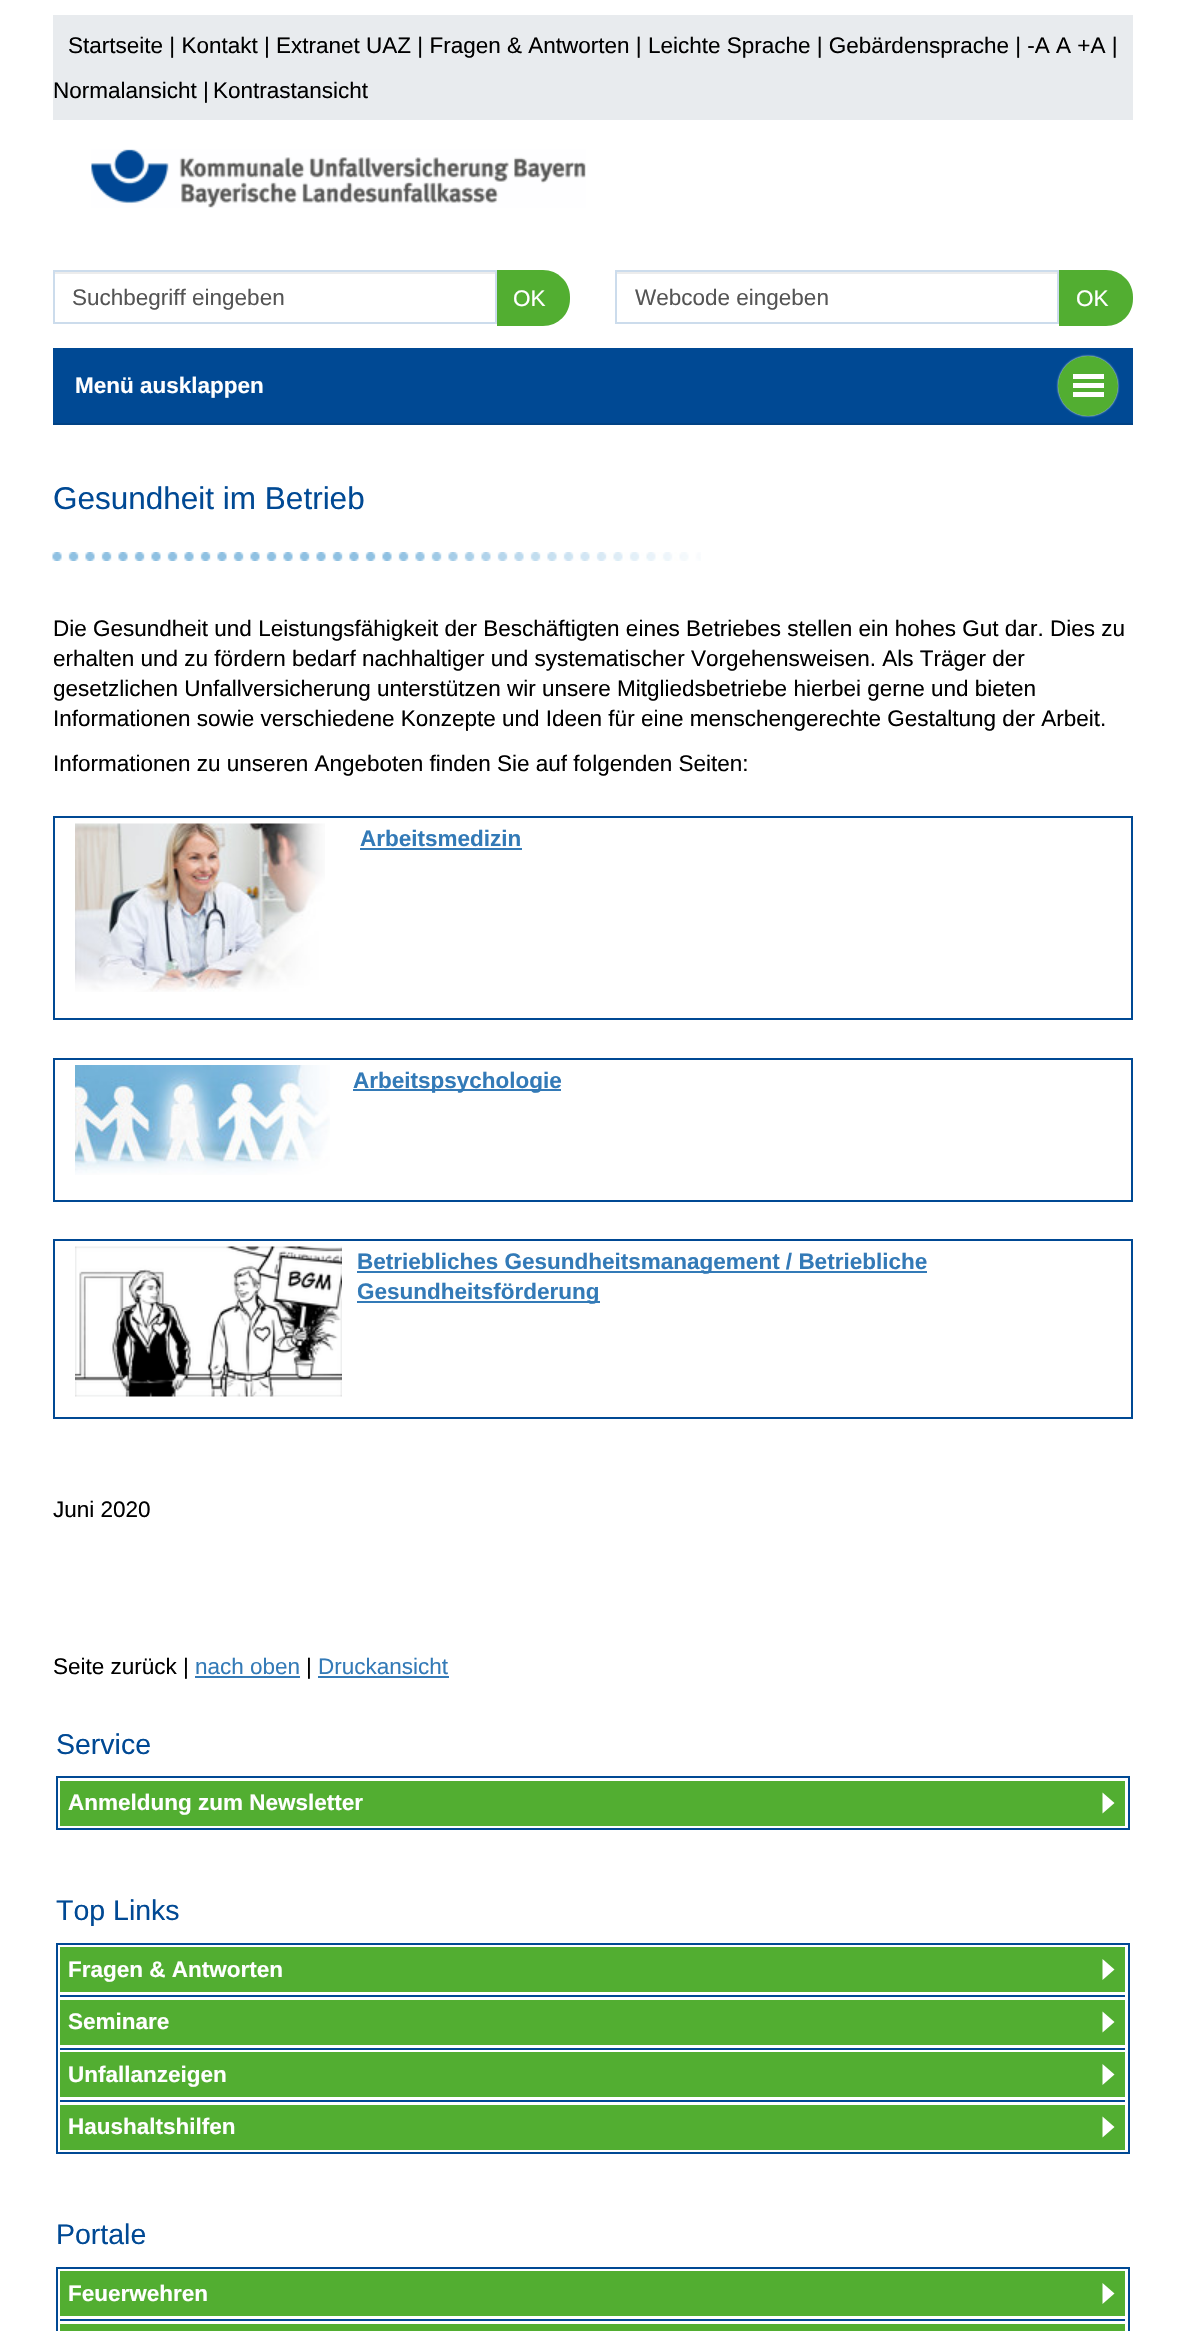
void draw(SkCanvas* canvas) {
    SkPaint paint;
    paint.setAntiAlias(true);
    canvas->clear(0xFFFFFFFF);
    paint.setColor(0xFFE8EBEE);
    canvas->drawRect(SkRect::MakeXYWH(53, 15, 1080, 105), paint);
    SkFont font1(fontMgr->matchFamilyStyle("Liberation Sans", SkFontStyle::Normal()), 22.5f);
    font1.setSubpixel(true);
    paint.setColor(0xFF000000);
    canvas->drawString("Startseite | Kontakt | Extranet UAZ | Fragen & Antworten | Leichte Sprache | Gebärdensprache | -A A +A |", 68, 53, font1, paint);
    canvas->drawString("Normalansicht |", 53, 98, font1, paint);
    canvas->drawString("Kontrastansicht", 213, 98, font1, paint);
    canvas->drawImageRect(SkImages::DeferredFromEncodedData(SkData::MakeFromFileName("img1.png")), SkRect::MakeXYWH(91, 149, 495, 59), SkSamplingOptions());
    paint.setColor(0xFFECECEC);
    canvas->drawRect(SkRect::MakeXYWH(54, 272, 441, 2), paint);
    paint.setStyle(SkPaint::kStroke_Style);
    paint.setStrokeWidth(2);
    paint.setColor(0xFFCCDCEC);
    canvas->drawRect(SkRect::MakeXYWH(54, 271, 442, 52), paint);
    paint.setStyle(SkPaint::kFill_Style);
    paint.setColor(0xFF555555);
    canvas->drawString("Suchbegriff eingeben", 72, 305, font1, paint);
    paint.setColor(0xFF52AE31);
    canvas->drawPath(SkPathBuilder().moveTo(497, 270).lineTo(543, 270).cubicTo(558, 270, 570, 282, 570, 297).lineTo(570, 299).cubicTo(570, 314, 558, 326, 543, 326).lineTo(497, 326).close().detach(), paint);
    paint.setColor(0xFFFFFFFF);
    canvas->drawString("OK", 513, 306, font1, paint);
    paint.setColor(0xFFECECEC);
    canvas->drawRect(SkRect::MakeXYWH(617, 272, 441, 2), paint);
    paint.setStyle(SkPaint::kStroke_Style);
    paint.setColor(0xFFCCDCEC);
    canvas->drawRect(SkRect::MakeXYWH(616, 271, 442, 52), paint);
    paint.setStyle(SkPaint::kFill_Style);
    paint.setColor(0xFF555555);
    canvas->drawString("Webcode eingeben", 635, 305, font1, paint);
    paint.setColor(0xFF52AE31);
    canvas->drawPath(SkPathBuilder().moveTo(1059, 270).lineTo(1106, 270).cubicTo(1121, 270, 1133, 282, 1133, 297).lineTo(1133, 299).cubicTo(1133, 314, 1121, 326, 1106, 326).lineTo(1059, 326).close().detach(), paint);
    paint.setColor(0xFFFFFFFF);
    canvas->drawString("OK", 1076, 306, font1, paint);
    paint.setColor(0xFF004994);
    canvas->drawRect(SkRect::MakeXYWH(53, 348, 1080, 75), paint);
    paint.setColor(0xFF004285);
    canvas->drawRect(SkRect::MakeXYWH(53, 423, 1080, 2), paint);
    SkFont font2(fontMgr->matchFamilyStyle("Liberation Sans", SkFontStyle::Bold()), 22.5f);
    font2.setSubpixel(true);
    paint.setColor(0xFFFFFFFF);
    canvas->drawString("Menü ausklappen", 75, 393, font2, paint);
    paint.setMaskFilter(SkMaskFilter::MakeBlur(kNormal_SkBlurStyle, 1));
    canvas->drawRoundRect(SkRect::MakeXYWH(1058, 356, 60, 60), 30, 30, paint);
    paint.setMaskFilter(nullptr);
    paint.setColor(0xFF52AE31);
    canvas->drawCircle(1088, 386, 30, paint);
    paint.setColor(0xFFFFFFFF);
    canvas->drawRect(SkRect::MakeXYWH(1073, 374, 31, 5), paint);
    canvas->drawRect(SkRect::MakeXYWH(1073, 383, 31, 5), paint);
    canvas->drawRect(SkRect::MakeXYWH(1073, 392, 31, 5), paint);
    SkFont font3(fontMgr->matchFamilyStyle("Liberation Sans", SkFontStyle::Normal()), 31.5f);
    font3.setSubpixel(true);
    paint.setColor(0xFF004994);
    canvas->drawString("Gesundheit im Betrieb", 53, 509, font3, paint);
    canvas->drawImageRect(SkImages::DeferredFromEncodedData(SkData::MakeFromFileName("img2.png")), SkRect::MakeXYWH(52, 552, 649, 9), SkSamplingOptions());
    paint.setColor(0xFF000000);
    canvas->drawString("Die Gesundheit und Leistungsfähigkeit der Beschäftigten eines Betriebes stellen ein hohes Gut dar. Dies zu", 53, 636, font1, paint);
    canvas->drawString("erhalten und zu fördern bedarf nachhaltiger und systematischer Vorgehensweisen. Als Träger der", 53, 666, font1, paint);
    canvas->drawString("gesetzlichen Unfallversicherung unterstützen wir unsere Mitgliedsbetriebe hierbei gerne und bieten", 53, 696, font1, paint);
    canvas->drawString("Informationen sowie verschiedene Konzepte und Ideen für eine menschengerechte Gestaltung der Arbeit.", 53, 726, font1, paint);
    canvas->drawString("Informationen zu unseren Angeboten finden Sie auf folgenden Seiten:", 53, 771, font1, paint);
    canvas->drawImageRect(SkImages::DeferredFromEncodedData(SkData::MakeFromFileName("img3.png")), SkRect::MakeXYWH(75, 823, 250, 169), SkSamplingOptions());
    paint.setColor(0xFF337AB7);
    canvas->drawRect(SkRect::MakeXYWH(360, 848, 162, 2), paint);
    paint.setStyle(SkPaint::kStroke_Style);
    paint.setColor(0xFF004994);
    canvas->drawRect(SkRect::MakeXYWH(54, 817, 1078, 202), paint);
    paint.setStyle(SkPaint::kFill_Style);
    paint.setColor(0xFF337AB7);
    canvas->drawString("Arbeitsmedizin", 360, 846, font2, paint);
    canvas->drawImageRect(SkImages::DeferredFromEncodedData(SkData::MakeFromFileName("img4.png")), SkRect::MakeXYWH(75, 1065, 255, 110), SkSamplingOptions());
    canvas->drawRect(SkRect::MakeXYWH(353, 1089, 208, 2), paint);
    paint.setStyle(SkPaint::kStroke_Style);
    paint.setColor(0xFF004994);
    canvas->drawRect(SkRect::MakeXYWH(54, 1059, 1078, 142), paint);
    paint.setStyle(SkPaint::kFill_Style);
    paint.setColor(0xFF337AB7);
    canvas->drawString("Arbeitspsychologie", 353, 1088, font2, paint);
    canvas->drawImageRect(SkImages::DeferredFromEncodedData(SkData::MakeFromFileName("img5.png")), SkRect::MakeXYWH(75, 1246, 267, 151), SkSamplingOptions());
    canvas->drawRect(SkRect::MakeXYWH(357, 1271, 570, 2), paint);
    canvas->drawRect(SkRect::MakeXYWH(357, 1301, 243, 2), paint);
    paint.setStyle(SkPaint::kStroke_Style);
    paint.setColor(0xFF004994);
    canvas->drawRect(SkRect::MakeXYWH(54, 1240, 1078, 178), paint);
    paint.setStyle(SkPaint::kFill_Style);
    paint.setColor(0xFF337AB7);
    canvas->drawString("Betriebliches Gesundheitsmanagement / Betriebliche", 357, 1269, font2, paint);
    canvas->drawString("Gesundheitsförderung", 357, 1299, font2, paint);
    paint.setColor(0xFF000000);
    canvas->drawString("Juni 2020", 53, 1517, font1, paint);
    canvas->drawString("Seite zurück |", 53, 1674, font1, paint);
    paint.setColor(0xFF337AB7);
    canvas->drawString("nach oben", 195, 1674, font1, paint);
    canvas->drawRect(SkRect::MakeXYWH(195, 1676, 105, 2), paint);
    paint.setColor(0xFF000000);
    canvas->drawString("|", 306, 1674, font1, paint);
    paint.setColor(0xFF337AB7);
    canvas->drawString("Druckansicht", 318, 1674, font1, paint);
    canvas->drawRect(SkRect::MakeXYWH(318, 1676, 131, 2), paint);
    SkFont font4(fontMgr->matchFamilyStyle("Liberation Sans", SkFontStyle::Normal()), 28.5f);
    font4.setSubpixel(true);
    paint.setColor(0xFF004994);
    canvas->drawString("Service", 56, 1754, font4, paint);
    paint.setStyle(SkPaint::kStroke_Style);
    canvas->drawRect(SkRect::MakeXYWH(57, 1777, 1072, 52), paint);
    paint.setStyle(SkPaint::kFill_Style);
    paint.setColor(0xFF52AE31);
    canvas->drawRect(SkRect::MakeXYWH(60, 1781, 1065, 45), paint);
    paint.setColor(0xFFFFFFFF);
    canvas->drawString("Anmeldung zum Newsletter", 68, 1810, font2, paint);
    canvas->drawPath(SkPathBuilder().moveTo(1102.5f, 1813.5f).lineTo(1102.5f, 1792.5f).lineTo(1114.5f, 1803).close().detach(), paint);
    paint.setColor(0xFF004994);
    canvas->drawString("Top Links", 56, 1920, font4, paint);
    paint.setStyle(SkPaint::kStroke_Style);
    canvas->drawRect(SkRect::MakeXYWH(57, 1944, 1072, 209), paint);
    paint.setStyle(SkPaint::kFill_Style);
    paint.setColor(0xFF52AE31);
    canvas->drawRect(SkRect::MakeXYWH(60, 1947, 1065, 45), paint);
    paint.setColor(0xFFFFFFFF);
    canvas->drawString("Fragen & Antworten", 68, 1977, font2, paint);
    canvas->drawPath(SkPathBuilder().moveTo(1102.5f, 1980).lineTo(1102.5f, 1959).lineTo(1114.5f, 1969.5f).close().detach(), paint);
    paint.setColor(0xFF004994);
    canvas->drawRect(SkRect::MakeXYWH(60, 1995, 1065, 2), paint);
    paint.setColor(0xFF52AE31);
    canvas->drawRect(SkRect::MakeXYWH(60, 2000, 1065, 45), paint);
    paint.setColor(0xFFFFFFFF);
    canvas->drawString("Seminare", 68, 2029, font2, paint);
    canvas->drawPath(SkPathBuilder().moveTo(1102.5f, 2032.5f).lineTo(1102.5f, 2011.5f).lineTo(1114.5f, 2022).close().detach(), paint);
    paint.setColor(0xFF004994);
    canvas->drawRect(SkRect::MakeXYWH(60, 2048, 1065, 2), paint);
    paint.setColor(0xFF52AE31);
    canvas->drawRect(SkRect::MakeXYWH(60, 2052, 1065, 45), paint);
    paint.setColor(0xFFFFFFFF);
    canvas->drawString("Unfallanzeigen", 68, 2082, font2, paint);
    canvas->drawPath(SkPathBuilder().moveTo(1102.5f, 2085).lineTo(1102.5f, 2064).lineTo(1114.5f, 2074.5f).close().detach(), paint);
    paint.setColor(0xFF004994);
    canvas->drawRect(SkRect::MakeXYWH(60, 2100, 1065, 2), paint);
    paint.setColor(0xFF52AE31);
    canvas->drawRect(SkRect::MakeXYWH(60, 2105, 1065, 45), paint);
    paint.setColor(0xFFFFFFFF);
    canvas->drawString("Haushaltshilfen", 68, 2134, font2, paint);
    canvas->drawPath(SkPathBuilder().moveTo(1102.5f, 2137.5f).lineTo(1102.5f, 2116.5f).lineTo(1114.5f, 2127).close().detach(), paint);
    paint.setColor(0xFF004994);
    canvas->drawString("Portale", 56, 2244, font4, paint);
    paint.setStyle(SkPaint::kStroke_Style);
    canvas->drawRect(SkRect::MakeXYWH(57, 2268, 1072, 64), paint);
    paint.setStyle(SkPaint::kFill_Style);
    paint.setColor(0xFF52AE31);
    canvas->drawRect(SkRect::MakeXYWH(60, 2271, 1065, 45), paint);
    paint.setColor(0xFFFFFFFF);
    canvas->drawString("Feuerwehren", 68, 2301, font2, paint);
    canvas->drawPath(SkPathBuilder().moveTo(1102.5f, 2304).lineTo(1102.5f, 2283).lineTo(1114.5f, 2293.5f).close().detach(), paint);
    paint.setColor(0xFF004994);
    canvas->drawRect(SkRect::MakeXYWH(60, 2319, 1065, 2), paint);
    paint.setColor(0xFF52AE31);
    canvas->drawRect(SkRect::MakeXYWH(60, 2324, 1065, 7), paint);
}
